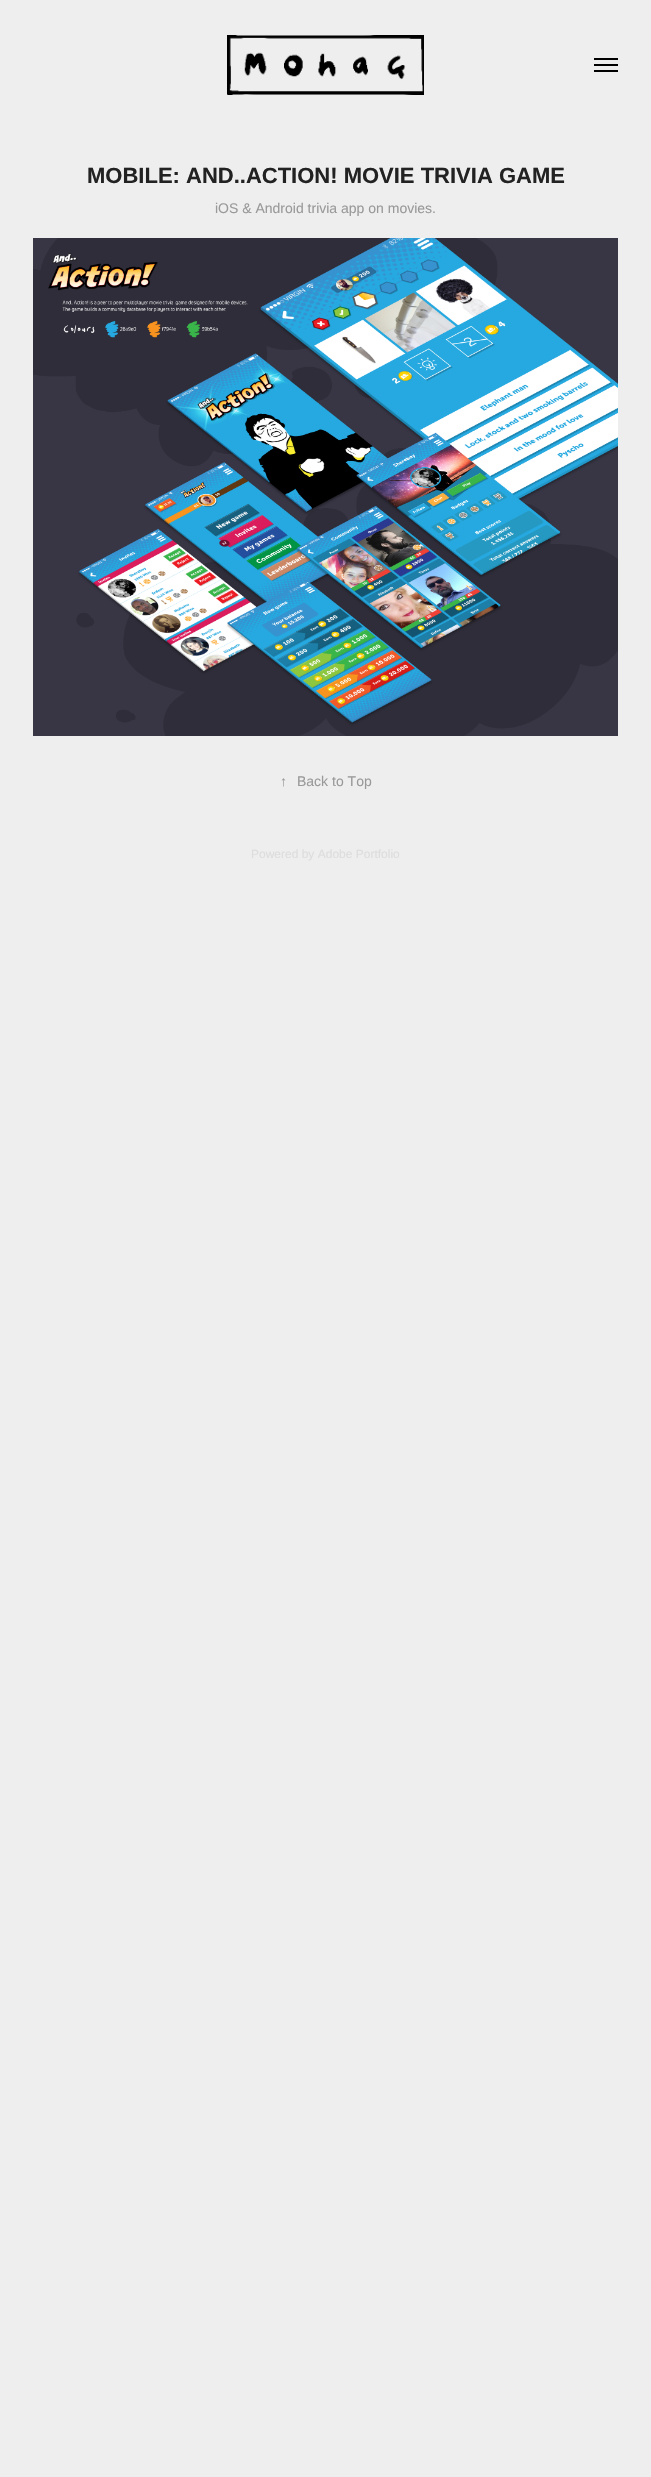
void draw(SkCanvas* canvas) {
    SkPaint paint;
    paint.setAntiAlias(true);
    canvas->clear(0xFFEEEEEE);
    canvas->drawImageRect(SkImages::DeferredFromEncodedData(SkData::MakeFromFileName("img1.png")), SkRect::MakeXYWH(227, 35, 197, 60), SkSamplingOptions());
    paint.setColor(0xFF000000);
    canvas->drawRect(SkRect::MakeXYWH(594, 58, 24, 2), paint);
    canvas->drawRect(SkRect::MakeXYWH(594, 64, 24, 2), paint);
    canvas->drawRect(SkRect::MakeXYWH(594, 70, 24, 2), paint);
    SkFont font1(fontMgr->matchFamilyStyle("Liberation Sans", SkFontStyle::Bold()), 22);
    font1.setSubpixel(true);
    paint.setColor(0xFF222222);
    canvas->drawString("MOBILE: AND..ACTION! MOVIE TRIVIA GAME", 87, 183, font1, paint);
    SkFont font2(fontMgr->matchFamilyStyle("Liberation Sans", SkFontStyle::Normal()), 14);
    font2.setSubpixel(true);
    paint.setColor(0xFF999999);
    canvas->drawString("iOS & Android trivia app on movies.", 215, 213, font2, paint);
    canvas->drawImageRect(SkImages::DeferredFromEncodedData(SkData::MakeFromFileName("img2.png")), SkRect::MakeXYWH(33, 238, 585, 498), SkSamplingOptions());
    canvas->drawString("↑", 280, 786, font2, paint);
    canvas->drawString("Back to Top", 297, 786, font2, paint);
    SkFont font3(fontMgr->matchFamilyStyle("Liberation Sans", SkFontStyle::Normal()), 12);
    font3.setSubpixel(true);
    paint.setColor(0xFFDDDDDD);
    canvas->drawString("Powered by Adobe Portfolio", 251, 858, font3, paint);
}
